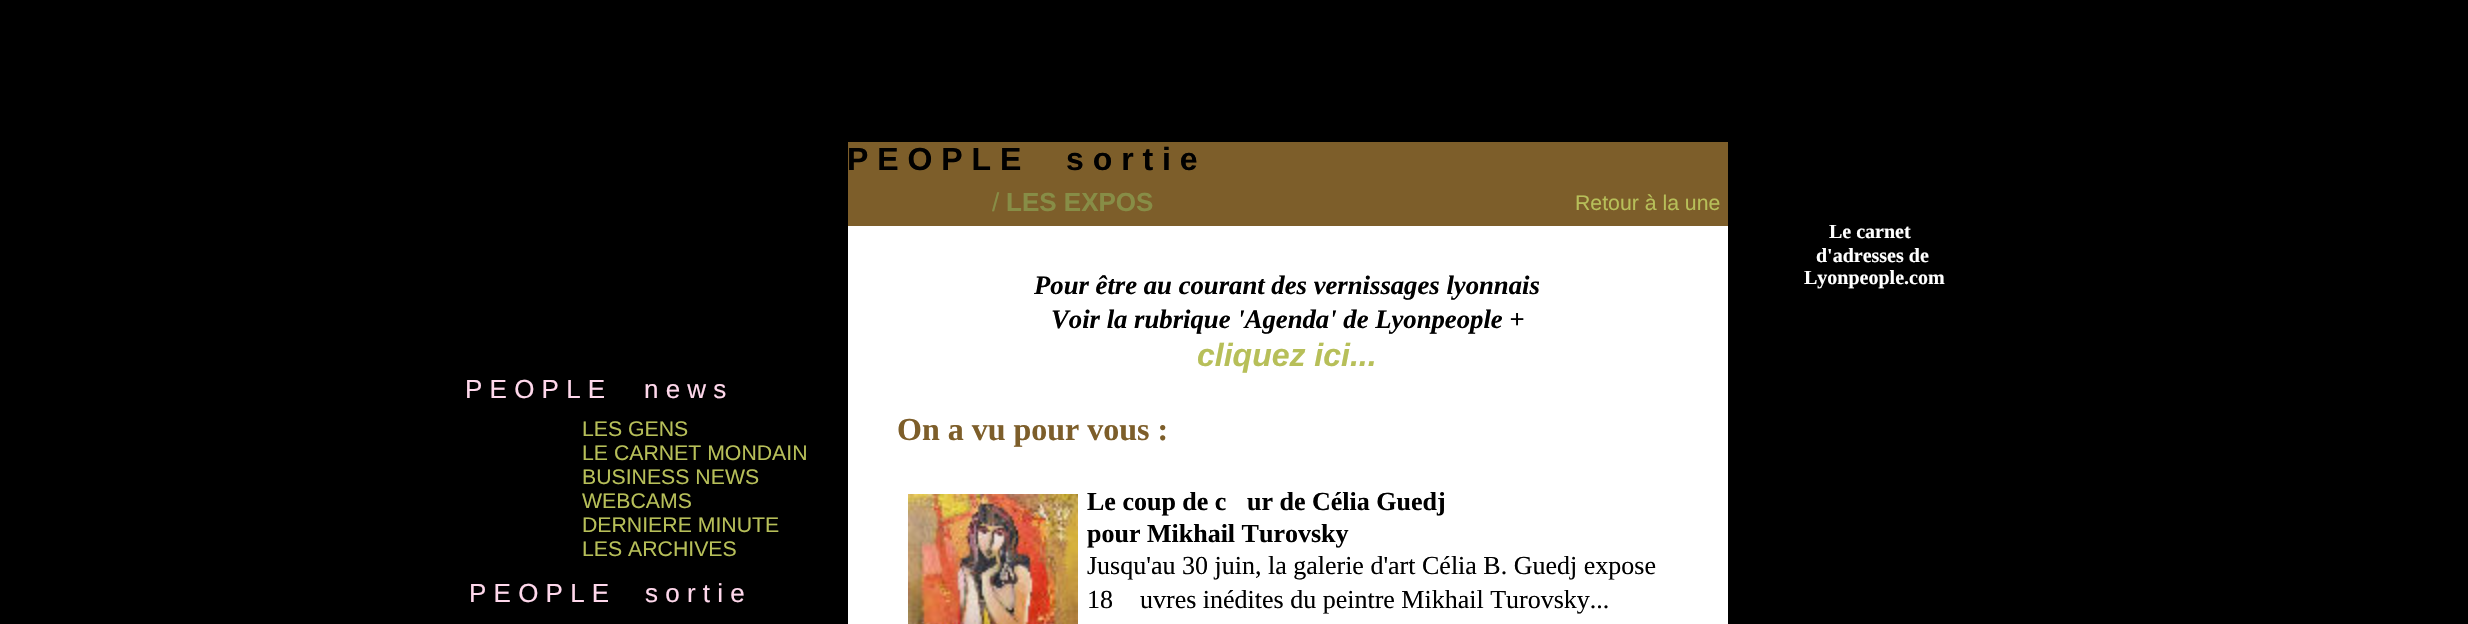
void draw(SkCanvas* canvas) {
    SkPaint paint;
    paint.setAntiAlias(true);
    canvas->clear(0xFF000000);
    SkFont font1(fontMgr->matchFamilyStyle("Liberation Sans", SkFontStyle::Normal()), 26);
    font1.setSubpixel(true);
    paint.setColor(0xFFFFD8EC);
    canvas->drawString("P E O P L E", 465, 398, font1, paint);
    canvas->drawString("n e w s", 644, 398, font1, paint);
    SkFont font2(fontMgr->matchFamilyStyle("Liberation Sans", SkFontStyle::Normal()), 21.25f);
    font2.setSubpixel(true);
    paint.setColor(0xFFB7BF59);
    canvas->drawString("LES GENS", 582, 436, font2, paint);
    canvas->drawString("LE CARNET MONDAIN", 582, 460, font2, paint);
    canvas->drawString("BUSINESS NEWS", 582, 484, font2, paint);
    canvas->drawString("WEBCAMS", 582, 508, font2, paint);
    canvas->drawString("DERNIERE MINUTE", 582, 532, font2, paint);
    canvas->drawString("LES ARCHIVES", 582, 556, font2, paint);
    paint.setColor(0xFFFFD8EC);
    canvas->drawString("P E O P L E", 469, 602, font1, paint);
    canvas->drawString("s o r t i e", 645, 602, font1, paint);
    paint.setColor(0xFFFFFFFF);
    canvas->drawRect(SkRect::MakeXYWH(848, 226, 880, 398), paint);
    paint.setColor(0xFF7D5E2A);
    canvas->drawRect(SkRect::MakeXYWH(848, 142, 880, 84), paint);
    SkFont font3(fontMgr->matchFamilyStyle("Liberation Sans", SkFontStyle::Bold()), 32);
    font3.setSubpixel(true);
    paint.setColor(0xFF000000);
    canvas->drawString("P E O P L E", 847, 170, font3, paint);
    canvas->drawString("s o r t i e", 1066, 170, font3, paint);
    paint.setColor(0xFF878D46);
    canvas->drawString("/", 992, 211, font1, paint);
    SkFont font4(fontMgr->matchFamilyStyle("Liberation Sans", SkFontStyle::Bold()), 26);
    font4.setSubpixel(true);
    canvas->drawString("LES EXPOS", 1006, 211, font4, paint);
    paint.setColor(0xFFB7BF59);
    canvas->drawString("Retour à la une", 1575, 210, font2, paint);
    SkFont font5(fontMgr->matchFamilyStyle("Liberation Serif", SkFontStyle::BoldItalic()), 26.7f);
    font5.setSubpixel(true);
    paint.setColor(0xFF000000);
    canvas->drawString("Pour être au courant des vernissages lyonnais", 1034, 294, font5, paint);
    canvas->drawString("Voir la rubrique 'Agenda' de Lyonpeople +", 1051, 328, font5, paint);
    SkFont font6(fontMgr->matchFamilyStyle("Liberation Sans", SkFontStyle::BoldItalic()), 32);
    font6.setSubpixel(true);
    paint.setColor(0xFFB7BF59);
    canvas->drawString("cliquez ici...", 1197, 366, font6, paint);
    SkFont font7(fontMgr->matchFamilyStyle("Liberation Serif", SkFontStyle::Bold()), 32);
    font7.setSubpixel(true);
    paint.setColor(0xFF7D5E2A);
    canvas->drawString("On a vu pour vous :", 897, 440, font7, paint);
    canvas->drawImageRect(SkImages::DeferredFromEncodedData(SkData::MakeFromFileName("img1.png")), SkRect::MakeXYWH(908, 494, 170, 130), SkSamplingOptions());
    SkFont font8(fontMgr->matchFamilyStyle("Liberation Serif", SkFontStyle::Bold()), 26);
    font8.setSubpixel(true);
    paint.setColor(0xFF000000);
    canvas->drawString("Le coup de c", 1087, 510, font8, paint);
    canvas->drawString("ur de Célia Guedj", 1247, 510, font8, paint);
    canvas->drawString("pour Mikhail Turovsky", 1087, 542, font8, paint);
    SkFont font9(fontMgr->matchFamilyStyle("Liberation Serif", SkFontStyle::Normal()), 26);
    font9.setSubpixel(true);
    canvas->drawString("Jusqu'au 30 juin, la galerie d'art Célia B. Guedj expose", 1087, 574, font9, paint);
    canvas->drawString("18", 1087, 608, font9, paint);
    canvas->drawString("uvres inédites du peintre Mikhail Turovsky...", 1140, 608, font9, paint);
    SkFont font10(fontMgr->matchFamilyStyle("Liberation Serif", SkFontStyle::Bold()), 20);
    font10.setSubpixel(true);
    paint.setColor(0xFFFFFFFF);
    canvas->drawString("Le carnet", 1829, 238, font10, paint);
    canvas->drawString("d'adresses de", 1816, 262, font10, paint);
    canvas->drawString("Lyonpeople.com", 1804, 284, font10, paint);
}
